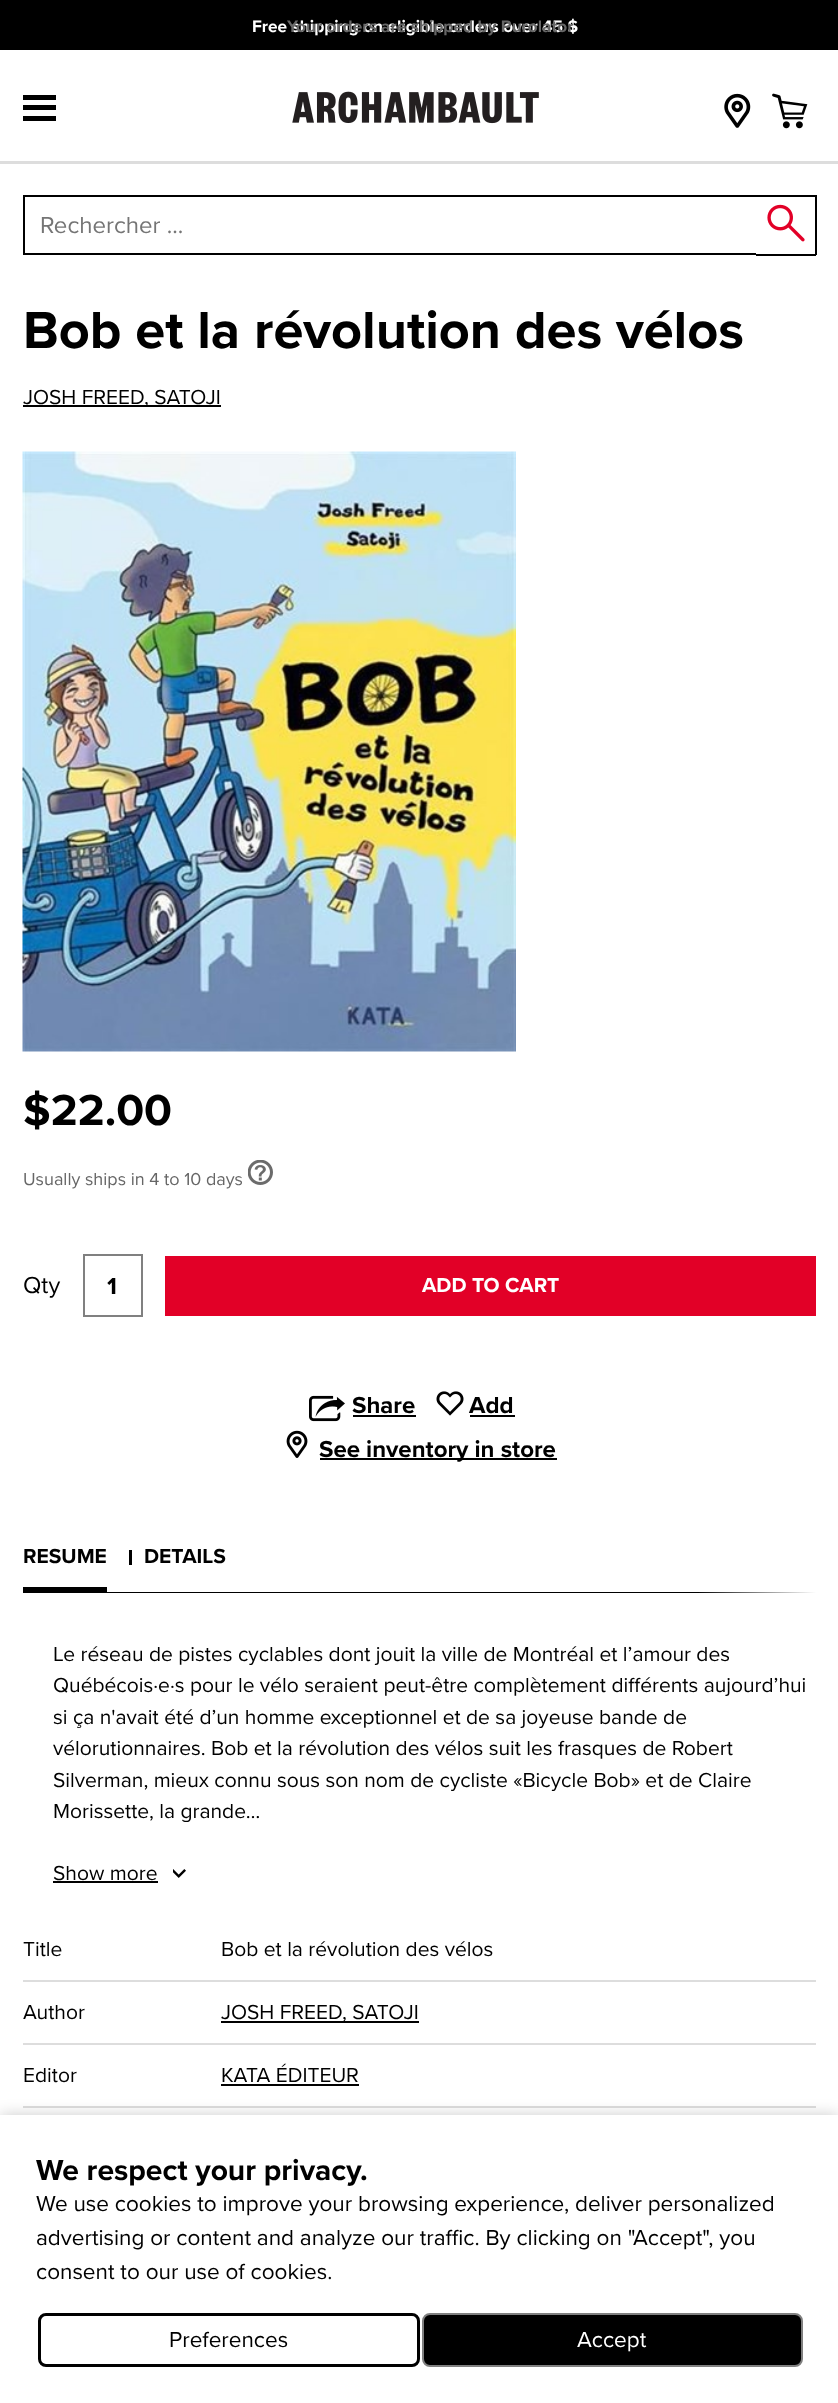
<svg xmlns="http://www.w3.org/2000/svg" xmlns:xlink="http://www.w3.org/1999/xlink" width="838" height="2403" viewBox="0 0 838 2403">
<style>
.cls-1{font:bold 17.25px Proxima Nova;fill:#ffffff}
.cls-2{font:bold 17.25px Proxima Nova;fill:#666666}
.cls-3{font:24px Proxima Nova;fill:#757575}
.cls-4{font:bold 54px Proxima Nova;fill:#000000}
.cls-5{font:21px Proxima Nova;fill:#000000}
.cls-6{font:bold 45px Proxima Nova;fill:#000000}
.cls-7{font:18px Proxima Nova;fill:#666666}
.cls-8{font:24px Proxima Nova;fill:#000000}
.cls-9{font:bold 24px Proxima Nova;fill:#000000}
.cls-10{font:bold 21px Proxima Nova;fill:#ffffff}
.cls-11{font:bold 21px Proxima Nova;fill:#000000}
.cls-12{font:bold 30px Proxima Nova;fill:#000000}
.cls-13{font:22.5px Proxima Nova;fill:#000000}
.cls-14{font:22.5px Proxima Nova;fill:#ffffff}
</style>
<defs>
<linearGradient id="g1" gradientUnits="userSpaceOnUse" x1="696" y1="1561" x2="816" y2="1561"><stop offset="0" stop-color="#ffffff" stop-opacity="0"/><stop offset="1" stop-color="#ffffff"/></linearGradient>
</defs>
<rect width="100%" height="100%" fill="#ffffff"/>
<rect fill="#000000" x="0" y="0" width="838" height="50"/>
<rect fill="#dddddd" x="0" y="161" width="838" height="3"/>
<rect fill="#000000" x="23" y="95" width="33" height="5"/>
<rect fill="#000000" x="23" y="116" width="33" height="5"/>
<rect fill="#000000" x="23" y="105" width="33" height="5"/>
<image xlink:href="image0.png" x="292" y="91" width="247" height="33"/>
<image xlink:href="image1.png" x="724" y="93" width="27" height="35"/>
<image xlink:href="image2.png" x="772" y="93" width="36" height="36"/>
<rect fill="none" stroke="#000000" stroke-width="2" x="24" y="196" width="733" height="58"/>
<rect fill="#ffffff" x="756" y="197" width="2" height="57"/>
<rect fill="#000000" x="756" y="195" width="60" height="2"/>
<rect fill="#000000" x="815" y="195" width="2" height="60"/>
<rect fill="#000000" x="756" y="254" width="60" height="2"/>
<image xlink:href="image3.png" x="767" y="204" width="38" height="38"/>
<rect fill="#000000" x="23" y="405" width="198" height="2"/>
<image xlink:href="image4.png" x="22" y="451" width="494" height="601"/>
<image xlink:href="image5.png" x="248" y="1160" width="25" height="25"/>
<rect fill="none" stroke="#808080" stroke-width="2" x="84" y="1255" width="58" height="61"/>
<rect fill="#e20027" x="165" y="1256" width="651" height="60"/>
<image xlink:href="image6.png" x="309" y="1395" width="36" height="27"/>
<rect fill="#000000" x="353" y="1415" width="63" height="2"/>
<image xlink:href="image7.png" x="436" y="1391" width="28" height="25"/>
<rect fill="#000000" x="470" y="1415" width="45" height="2"/>
<image xlink:href="image8.png" x="286" y="1430" width="22" height="28"/>
<rect fill="#000000" x="320" y="1458" width="237" height="2"/>
<rect fill="#000000" x="23" y="1592" width="793" height="1"/>
<rect fill="#000000" x="23" y="1587" width="84" height="5"/>
<rect fill="#000000" x="129" y="1550" width="3" height="15"/>
<rect fill="url(#g1)" x="699" y="1592" width="117" height="1"/>
<rect fill="#000000" x="53" y="1881" width="105" height="2"/>
<image xlink:href="image9.png" x="173" y="1869" width="13" height="9"/>
<rect fill="#dddddd" x="23" y="1980" width="793" height="2"/>
<rect fill="#dddddd" x="23" y="2043" width="793" height="2"/>
<rect fill="#000000" x="221" y="2021" width="198" height="2"/>
<rect fill="#dddddd" x="23" y="2106" width="793" height="2"/>
<rect fill="#000000" x="221" y="2084" width="138" height="2"/>
<rect fill="#000000" fill-opacity="0.2" filter="blur(7.5px)" x="0" y="2115" width="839" height="288"/>
<rect fill="#ffffff" x="0" y="2115" width="838" height="288"/>
<rect fill="none" stroke="#000000" stroke-width="3" x="39.5" y="2314.5" width="379" height="51" rx="6.5"/>
<rect fill="#000000" stroke="#808080" stroke-width="2" x="423" y="2314" width="379" height="52" rx="7"/>
<text class="cls-1" x="252" y="32">Free shipping on eligible orders over 45 $</text>
<text class="cls-2" x="287" y="32">Your orders are shipped by Purolator</text>
<text class="cls-3" x="40" y="233">Rechercher ...</text>
<text class="cls-4" x="23" y="348">Bob et la révolution des vélos</text>
<text class="cls-5" x="23" y="404">JOSH FREED, SATOJI</text>
<text class="cls-6" x="23" y="1125">$22.00</text>
<text class="cls-7" x="23" y="1185">Usually ships in 4 to 10 days</text>
<text class="cls-8" x="23" y="1293">Qty</text>
<text class="cls-9" x="107" y="1294">1</text>
<text class="cls-10" x="422" y="1292">ADD TO CART</text>
<text class="cls-9" x="352" y="1413">Share</text>
<text class="cls-9" x="469" y="1413">Add</text>
<text class="cls-9" x="319" y="1457">See inventory in store</text>
<text class="cls-11" x="23" y="1563">RESUME</text>
<text class="cls-11" x="144" y="1563">DETAILS</text>
<text class="cls-5"><tspan x="53" y="1661">Le réseau de pistes cyclables dont jouit la ville de Montréal et l’amour des</tspan><tspan x="53" y="1692">Québécois·e·s pour le vélo seraient peut-être complètement différents aujourd’hui</tspan><tspan x="53" y="1724">si ça n'avait été d’un homme exceptionnel et de sa joyeuse bande de</tspan><tspan x="53" y="1755">vélorutionnaires. Bob et la révolution des vélos suit les frasques de Robert</tspan><tspan x="53" y="1787">Silverman, mieux connu sous son nom de cycliste «Bicycle Bob» et de Claire</tspan><tspan x="53" y="1818">Morissette, la grande…</tspan></text>
<text class="cls-5" x="53" y="1880">Show more</text>
<text class="cls-5" x="23" y="1956">Title</text>
<text class="cls-5" x="221" y="1956">Bob et la révolution des vélos</text>
<text class="cls-5" x="23" y="2019">Author</text>
<text class="cls-5" x="221" y="2019">JOSH FREED, SATOJI</text>
<text class="cls-5" x="23" y="2082">Editor</text>
<text class="cls-5" x="221" y="2082">KATA ÉDITEUR</text>
<text class="cls-12" x="36" y="2180">We respect your privacy.</text>
<text class="cls-13"><tspan x="36" y="2211">We use cookies to improve your browsing experience, deliver personalized</tspan><tspan x="36" y="2245">advertising or content and analyze our traffic. By clicking on "Accept", you</tspan><tspan x="36" y="2279">consent to our use of cookies.</tspan></text>
<text class="cls-13" x="169" y="2347">Preferences</text>
<text class="cls-14" x="577" y="2347">Accept</text>
</svg>
